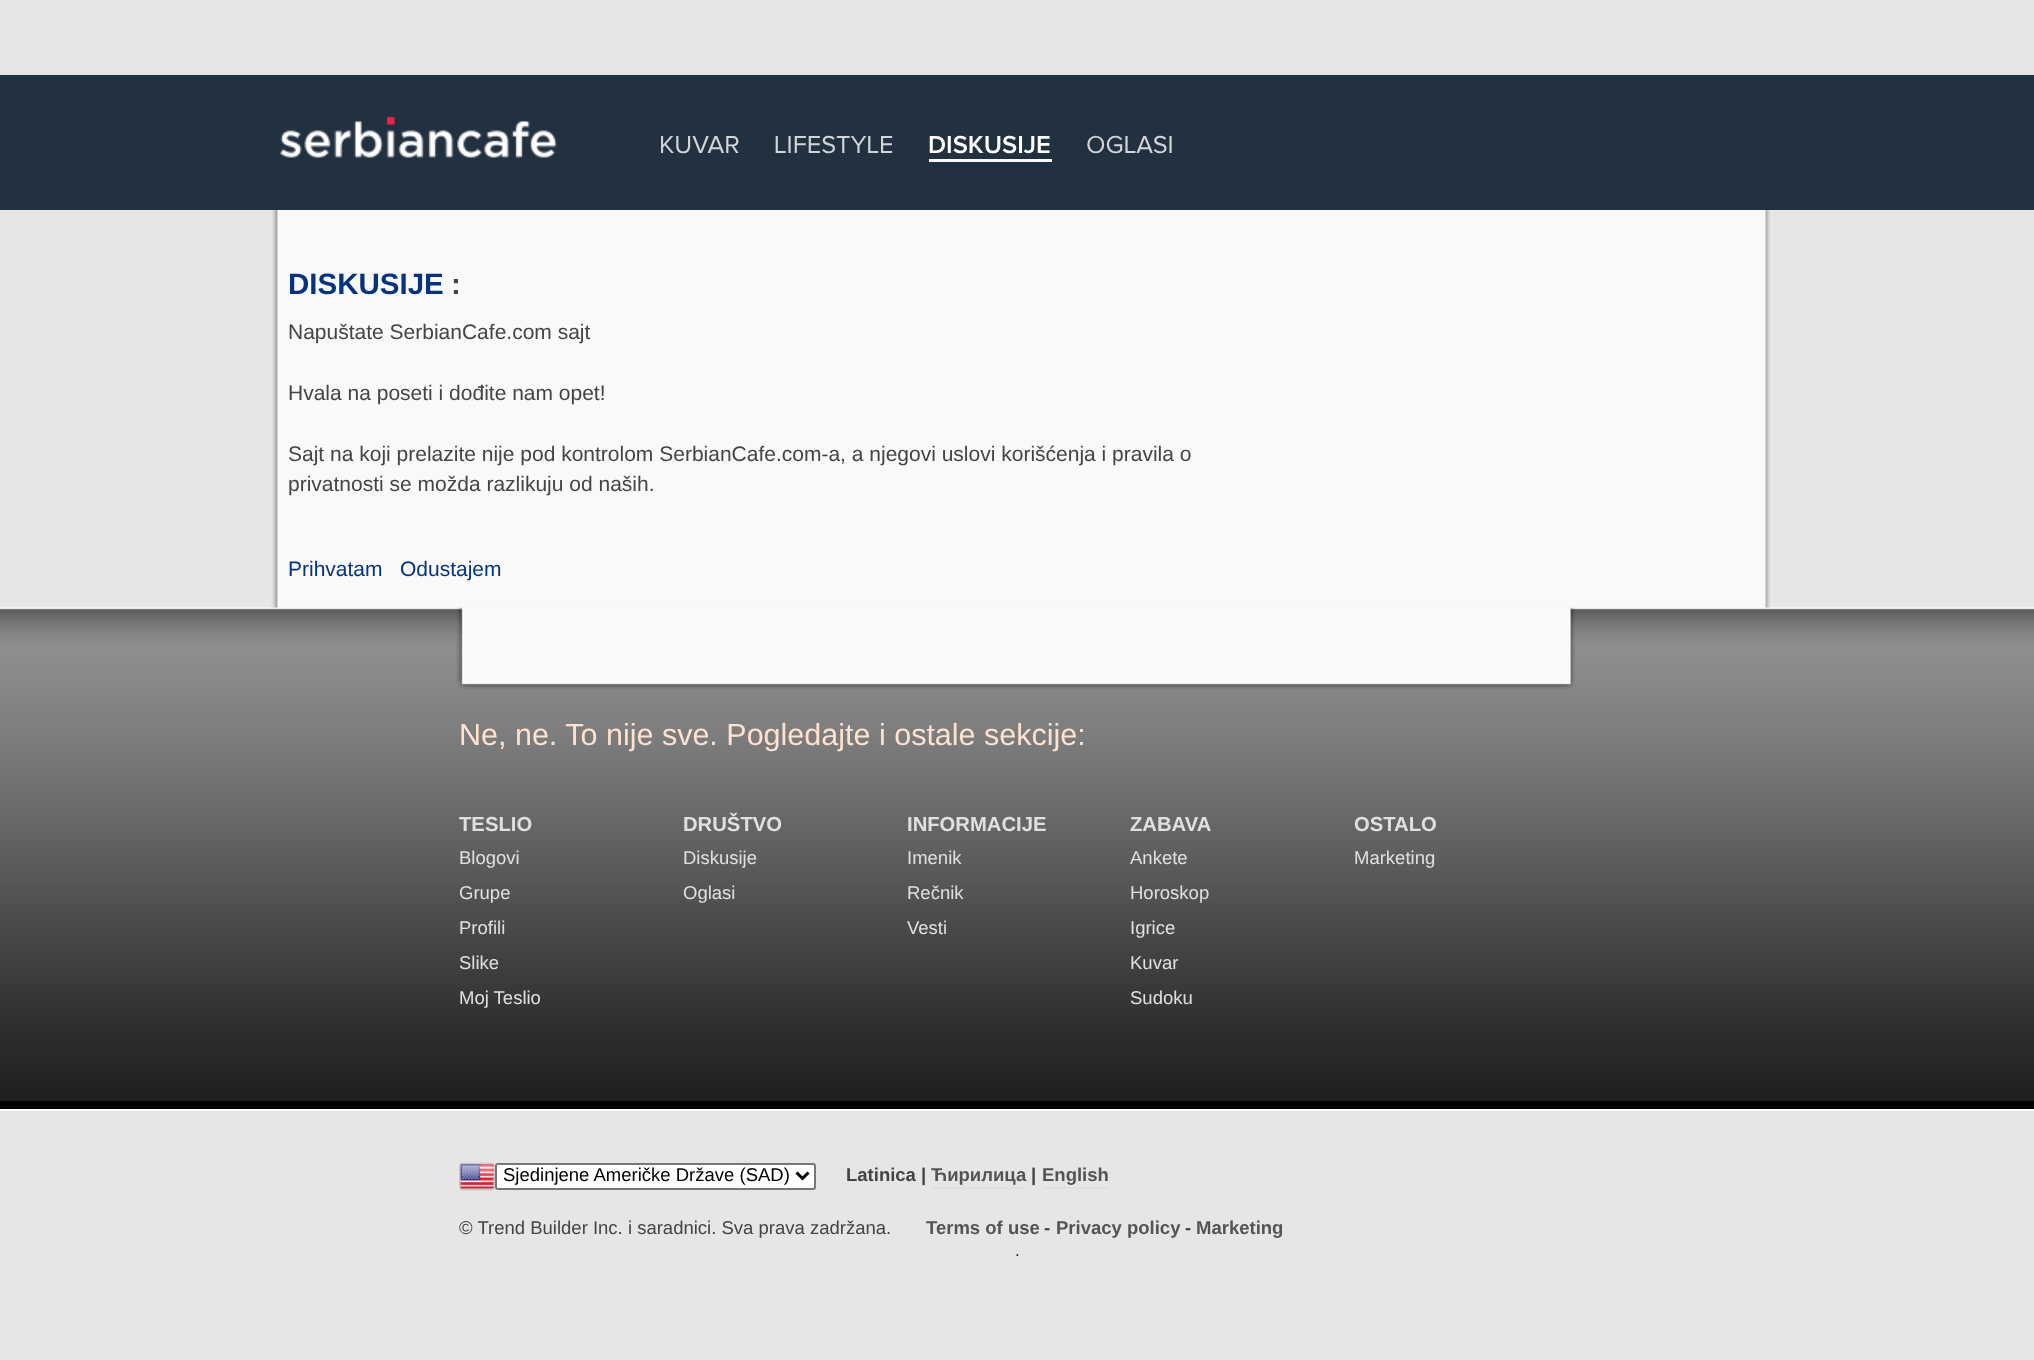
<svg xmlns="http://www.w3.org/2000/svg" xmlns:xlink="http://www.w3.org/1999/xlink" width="2034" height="1360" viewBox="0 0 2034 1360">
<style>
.cls-1{font:25.5px Proxima Nova;fill:#d2d5d8}
.cls-2{font:600 25.5px Proxima Nova;fill:#ffffff}
.cls-3{font:bold 29.5px Liberation Sans;fill:#07337c}
.cls-4{font:bold 29.5px Liberation Sans;fill:#444444}
.cls-5{font:21px Liberation Sans;fill:#444444}
.cls-6{font:21px Liberation Sans;fill:#07337c}
.cls-7{font:30.5px Liberation Sans;fill:#ffe1cf}
.cls-8{font:bold 20.25px Liberation Sans;fill:#e0e0e0}
.cls-9{font:18.5px Liberation Sans;fill:#e0e0e0}
.cls-10{font:18.5px Liberation Sans;fill:#000000}
.cls-11{font:bold 18.5px Liberation Sans;fill:#444444}
.cls-12{font:bold 18.5px Liberation Sans;fill:#545454}
.cls-13{font:18.5px Liberation Sans;fill:#444444}
.cls-14{font:17px Liberation Sans;fill:#232323}
</style>
<rect width="100%" height="100%" fill="#e6e6e6"/>
<rect fill="#213140" x="0" y="75" width="2034" height="135"/>
<image xlink:href="image0.png" x="280" y="116" width="277" height="42"/>
<rect fill="#fafafa" x="929" y="159" width="123" height="3"/>
<image xlink:href="image2.png" x="0" y="607" width="2034" height="502"/>
<image xlink:href="image3.png" x="456" y="607" width="1119" height="82"/>
<image xlink:href="image1.png" x="270" y="210" width="1500" height="398"/>
<rect fill="#ffffff" x="0" y="1109" width="2034" height="2"/>
<image xlink:href="image4.png" x="459" y="1162" width="36" height="29"/>
<rect fill="#ffffff" stroke="#767676" stroke-width="2" x="496" y="1164" width="319" height="25" rx="2"/>
<path fill="none" stroke="#000000" stroke-width="3" d="M796.5 1172.5L802.5 1178.5L808.5 1172.5"/>
<rect fill="#e0e0e0" x="932" y="1187" width="94" height="2"/>
<rect fill="#e0e0e0" x="1043" y="1187" width="66" height="2"/>
<text class="cls-1" x="659" y="153">KUVAR</text>
<text class="cls-1" x="774" y="153">LIFESTYLE</text>
<text class="cls-2" x="928" y="153">DISKUSIJE</text>
<text class="cls-1" x="1086" y="153">OGLASI</text>
<text class="cls-3" x="288" y="294">DISKUSIJE</text>
<text class="cls-4" x="451" y="294">:</text>
<text class="cls-5" x="288" y="339">Napuštate SerbianCafe.com sajt</text>
<text class="cls-5" x="288" y="400">Hvala na poseti i dođite nam opet!</text>
<text class="cls-5"><tspan x="288" y="461">Sajt na koji prelazite nije pod kontrolom SerbianCafe.com-a, a njegovi uslovi korišćenja i pravila o</tspan><tspan x="288" y="491">privatnosti se možda razlikuju od naših.</tspan></text>
<text class="cls-6" x="288" y="576">Prihvatam</text>
<text class="cls-6" x="400" y="576">Odustajem</text>
<text class="cls-7" x="459" y="745">Ne, ne. To nije sve. Pogledajte i ostale sekcije:</text>
<text class="cls-8" x="459" y="831">TESLIO</text>
<text class="cls-9"><tspan x="459" y="864">Blogovi</tspan><tspan x="459" y="899">Grupe</tspan><tspan x="459" y="934">Profili</tspan><tspan x="459" y="969">Slike</tspan><tspan x="459" y="1004">Moj Teslio</tspan></text>
<text class="cls-8" x="683" y="831">DRUŠTVO</text>
<text class="cls-9"><tspan x="683" y="864">Diskusije</tspan><tspan x="683" y="899">Oglasi</tspan></text>
<text class="cls-8" x="907" y="831">INFORMACIJE</text>
<text class="cls-9"><tspan x="907" y="864">Imenik</tspan><tspan x="907" y="899">Rečnik</tspan><tspan x="907" y="934">Vesti</tspan></text>
<text class="cls-8" x="1130" y="831">ZABAVA</text>
<text class="cls-9"><tspan x="1130" y="864">Ankete</tspan><tspan x="1130" y="899">Horoskop</tspan><tspan x="1130" y="934">Igrice</tspan><tspan x="1130" y="969">Kuvar</tspan><tspan x="1130" y="1004">Sudoku</tspan></text>
<text class="cls-8" x="1354" y="831">OSTALO</text>
<text class="cls-9" x="1354" y="864">Marketing</text>
<text class="cls-10" x="503" y="1181">Sjedinjene Američke Države (SAD)</text>
<text class="cls-11" x="846" y="1181">Latinica |</text>
<text class="cls-12" x="931" y="1181">Ћирилица</text>
<text class="cls-11" x="1031" y="1181">|</text>
<text class="cls-12" x="1042" y="1181">English</text>
<text class="cls-13" x="459" y="1234">© Trend Builder Inc. i saradnici. Sva prava zadržana.</text>
<text class="cls-12" x="926" y="1234">Terms of use</text>
<text class="cls-11" x="1044" y="1234">-</text>
<text class="cls-12" x="1056" y="1234">Privacy policy</text>
<text class="cls-11" x="1185" y="1234">-</text>
<text class="cls-12" x="1196" y="1234">Marketing</text>
<text class="cls-14" x="1015" y="1256">.</text>
</svg>
